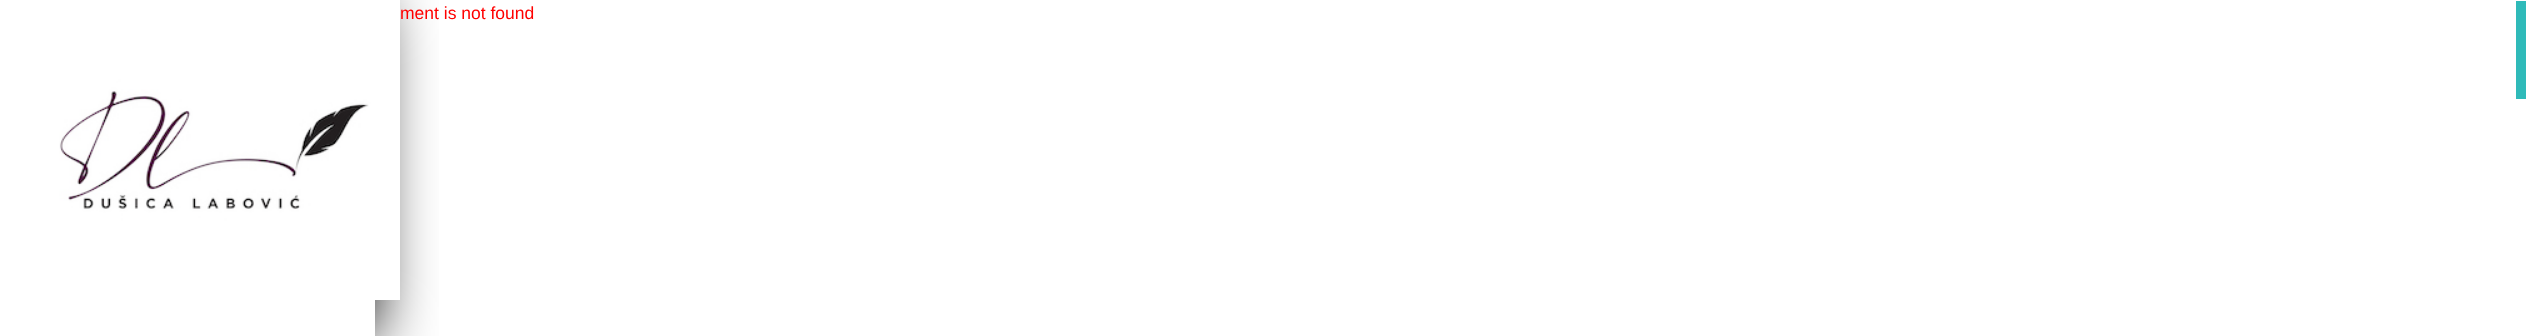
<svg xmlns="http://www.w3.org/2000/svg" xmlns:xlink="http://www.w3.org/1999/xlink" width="2527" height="336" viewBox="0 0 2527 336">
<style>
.cls-1{font:17.5px Liberation Sans;fill:#ff0000}
</style>
<defs>
<clipPath id="clip1"><rect x="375" y="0" width="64" height="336"/></clipPath>
</defs>
<rect width="100%" height="100%" fill="#ffffff"/>
<g clip-path="url(#clip1)">
<rect fill="#000000" filter="blur(31px)" x="0" y="0" width="375" height="336"/>
</g>
<image xlink:href="image0.png" x="59" y="0" width="341" height="300"/>
<rect fill="#2fbab9" x="2516" y="1" width="10" height="98"/>
<text class="cls-1" x="400" y="19">ment is not found</text>
</svg>
